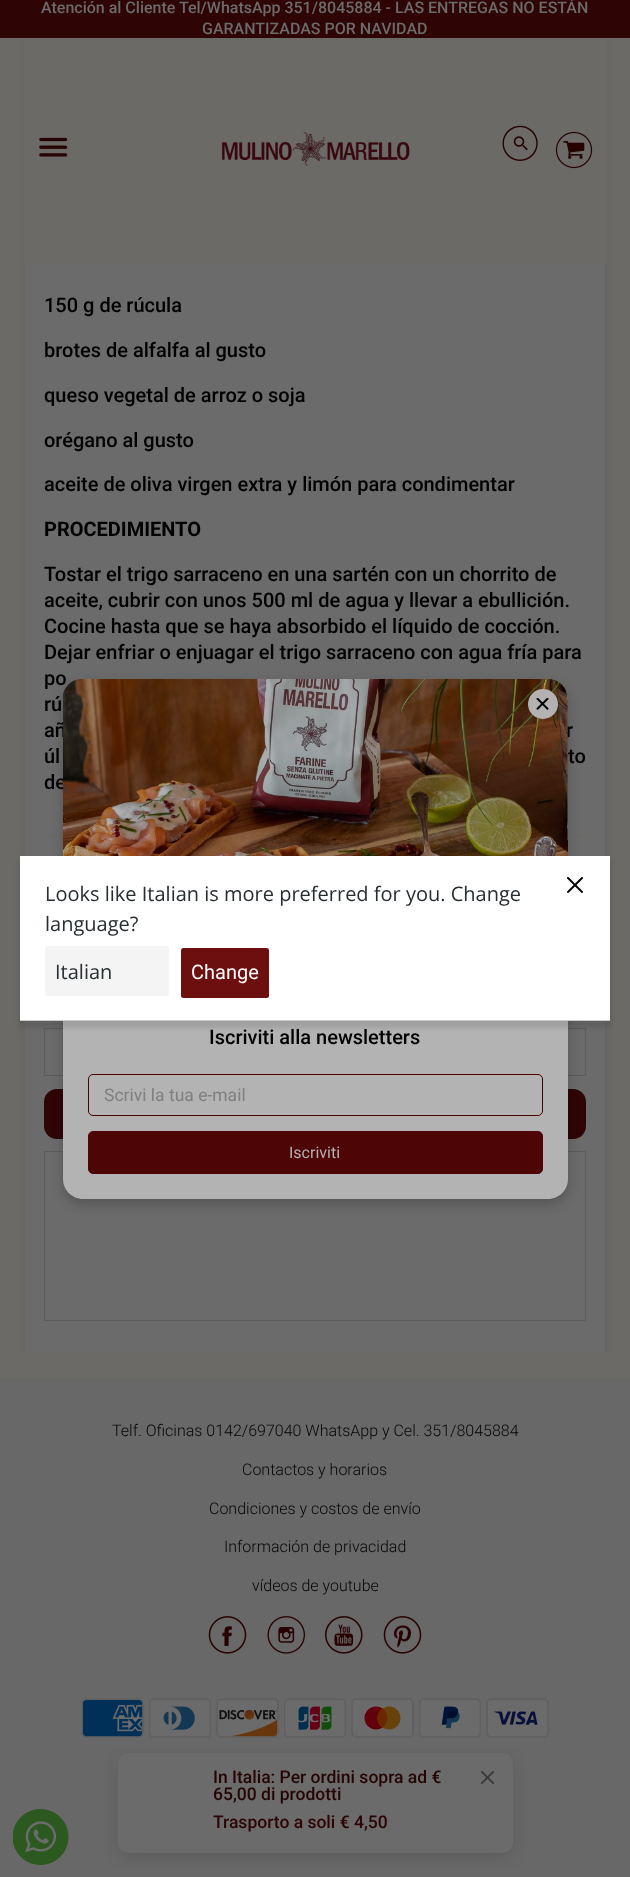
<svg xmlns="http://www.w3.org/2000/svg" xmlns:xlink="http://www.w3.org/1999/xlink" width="630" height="1877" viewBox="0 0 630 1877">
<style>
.cls-1{font:500 16px Roboto;fill:#6b6b6b}
.cls-2{font:500 20px Roboto;fill:#000000}
.cls-3{font:bold 20px Roboto;fill:#000000}
.cls-4{font:20px Roboto;fill:#ffffff}
.cls-5{font:20px Open Sans;fill:#272e31}
.cls-6{font:17.5px Roboto;fill:#7f7f7f}
.cls-7{font:16px Roboto;fill:#b3b3b3}
.cls-8{font:300 16px Roboto;fill:#060606}
.cls-9{font:500 17.5px Roboto;fill:#250404}
.cls-10{font:500 17.5px Roboto;fill:#2d0404}
</style>
<defs>
<clipPath id="clip1"><rect x="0" y="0" width="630" height="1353"/></clipPath>
</defs>
<rect width="100%" height="100%" fill="#6b6a67"/>
<g clip-path="url(#clip1)">
<rect fill="#454545" fill-opacity="0.32" filter="blur(4.5px)" x="28" y="-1" width="575" height="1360"/>
</g>
<rect fill="#2e0504" x="0" y="0" width="630" height="38"/>
<rect fill="#6b6a67" x="24" y="38" width="583" height="225"/>
<image xlink:href="image0.png" x="39" y="137" width="29" height="20"/>
<image xlink:href="image1.png" x="221" y="132" width="189" height="34"/>
<image xlink:href="image2.png" x="502" y="125" width="36" height="36"/>
<image xlink:href="image3.png" x="555" y="131" width="38" height="38"/>
<rect fill="#6b6b6b" x="25" y="263" width="580" height="1090"/>
<rect fill="#6b6a67" x="44" y="834" width="542" height="3"/>
<rect fill="none" stroke="#5c5c5c" x="44.5" y="1028.5" width="541" height="47"/>
<rect fill="#2e0504" x="44" y="1089" width="542" height="50" rx="13"/>
<rect fill="none" stroke="#5c5c5c" x="44.5" y="1151.5" width="541" height="169"/>
<rect fill="#000000" fill-opacity="0.2" filter="blur(6px)" x="63" y="684" width="505" height="520" rx="20"/>
<path fill="#b3b3b3" d="M63 939H568V1179C568 1190 559 1199 548 1199H83C72 1199 63 1190 63 1179Z"/>
<rect fill="none" stroke="#4c0101" x="88.5" y="1074.5" width="454" height="41" rx="4.5"/>
<rect fill="#4e0505" stroke="#4e0505" x="88.5" y="1131.5" width="454" height="42" rx="4.5"/>
<rect fill="#686868" x="0" y="1378" width="630" height="499"/>
<image xlink:href="image7.png" x="208" y="1616" width="39" height="38"/>
<image xlink:href="image8.png" x="267" y="1616" width="38" height="38"/>
<image xlink:href="image9.png" x="325" y="1616" width="38" height="38"/>
<image xlink:href="image10.png" x="383" y="1616" width="39" height="38"/>
<image xlink:href="image11.png" x="81" y="1698" width="63" height="40"/>
<image xlink:href="image12.png" x="149" y="1698" width="62" height="40"/>
<image xlink:href="image13.png" x="216" y="1698" width="63" height="40"/>
<image xlink:href="image14.png" x="284" y="1698" width="62" height="40"/>
<image xlink:href="image15.png" x="351" y="1698" width="63" height="40"/>
<image xlink:href="image16.png" x="419" y="1698" width="62" height="40"/>
<image xlink:href="image17.png" x="486" y="1698" width="63" height="40"/>
<image xlink:href="image18.png" x="13" y="1809" width="56" height="56"/>
<rect fill="#000000" fill-opacity="0.1" filter="blur(7.5px)" x="118" y="1758" width="395" height="100" rx="10"/>
<rect fill="#6b6b6b" x="118" y="1753" width="395" height="100" rx="10"/>
<image xlink:href="image19.png" x="481" y="1771" width="13" height="13"/>
<text class="cls-1" x="41" y="13">Atención al Cliente Tel/WhatsApp 351/8045884 - LAS ENTREGAS NO ESTÁN</text>
<text class="cls-1" x="202" y="34">GARANTIZADAS POR NAVIDAD</text>
<text class="cls-2" x="44" y="312">150 g de rúcula</text>
<text class="cls-2" x="44" y="357">brotes de alfalfa al gusto</text>
<text class="cls-2" x="44" y="402">queso vegetal de arroz o soja</text>
<text class="cls-2" x="44" y="447">orégano al gusto</text>
<text class="cls-2" x="44" y="491">aceite de oliva virgen extra y limón para condimentar</text>
<text class="cls-3" x="44" y="536">PROCEDIMIENTO</text>
<text class="cls-2"><tspan x="44" y="581">Tostar el trigo sarraceno en una sartén con un chorrito de</tspan><tspan x="44" y="607">aceite, cubrir con unos 500 ml de agua y llevar a ebullición.</tspan><tspan x="44" y="633">Cocine hasta que se haya absorbido el líquido de cocción.</tspan><tspan x="44" y="659">Dejar enfriar o enjuagar el trigo sarraceno con agua fría para</tspan><tspan x="44" y="685">po</tspan><tspan x="44" y="711">rú</tspan><tspan x="44" y="737">añ</tspan></text>
<text class="cls-2" x="566" y="737">r</text>
<text class="cls-2" x="44" y="763">úl</text>
<text class="cls-2" x="568" y="763">to</text>
<text class="cls-2" x="44" y="789">de</text>
<image xlink:href="image6.png" x="63" y="679" width="505" height="177"/>
<rect fill="#000000" fill-opacity="0.3" filter="blur(0.5px)" x="20" y="856" width="590" height="165"/>
<rect fill="#000000" fill-opacity="0.1" filter="blur(2.5px)" x="19" y="860" width="592" height="168"/>
<rect fill="#ffffff" x="20" y="856" width="590" height="164"/>
<image xlink:href="image4.png" x="567" y="877" width="16" height="16"/>
<rect fill="#6d0f0f" x="181" y="948" width="88" height="50" rx="2.5"/>
<text class="cls-4" x="191" y="979">Change</text>
<rect fill="#f4f4f4" x="45" y="946" width="124" height="50" rx="2.5"/>
<text class="cls-5" x="55" y="979">Italian</text>
<text class="cls-5" x="45" y="931">language?</text>
<text class="cls-5" x="45" y="901">Looks like Italian is more preferred for you. Change</text>
<rect fill="#cccccc" x="20" y="1020" width="590" height="1"/>
<circle fill="#b3b1b1" cx="543" cy="704" r="15"/>
<image xlink:href="image5.png" x="536" y="698" width="13" height="12"/>
<text class="cls-2" x="209" y="1044">Iscriviti alla newsletters</text>
<text class="cls-6" x="104" y="1101">Scrivi la tua e-mail</text>
<text class="cls-7" x="289" y="1158">Iscriviti</text>
<text class="cls-8" x="112" y="1436">Telf. Oficinas 0142/697040 WhatsApp y Cel. 351/8045884</text>
<text class="cls-8" x="242" y="1475">Contactos y horarios</text>
<text class="cls-8" x="209" y="1514">Condiciones y costos de envío</text>
<text class="cls-8" x="224" y="1552">Información de privacidad</text>
<text class="cls-8" x="252" y="1591">vídeos de youtube</text>
<text class="cls-9"><tspan x="213" y="1783">In Italia: Per ordini sopra ad €</tspan><tspan x="213" y="1800">65,00 di prodotti</tspan></text>
<text class="cls-10" x="213" y="1828">Trasporto a soli € 4,50</text>
</svg>
